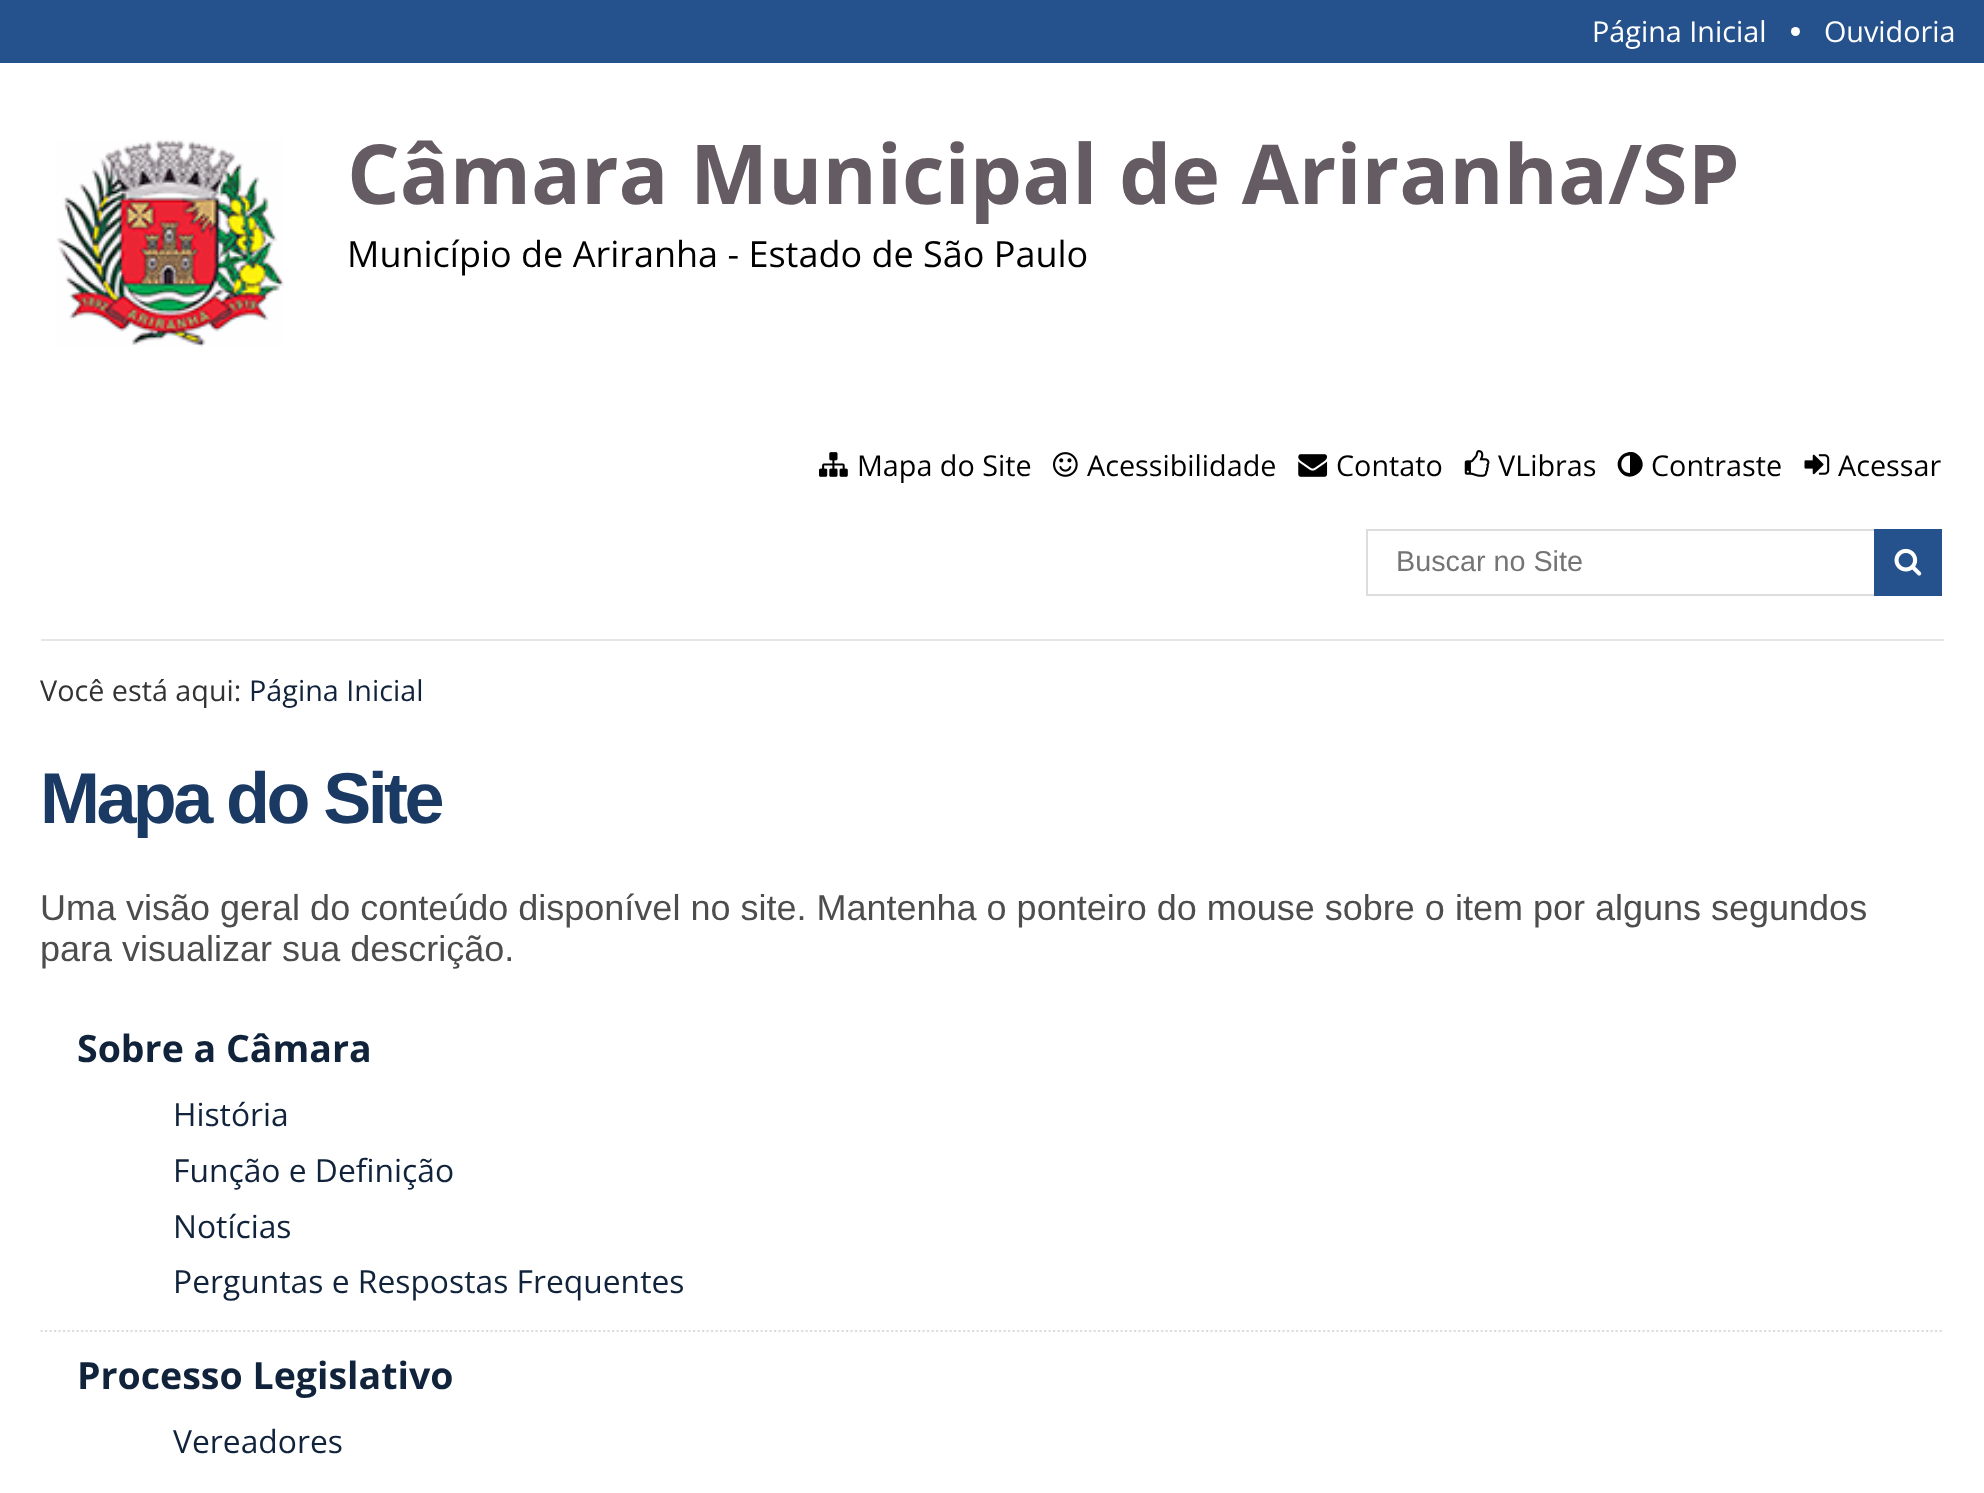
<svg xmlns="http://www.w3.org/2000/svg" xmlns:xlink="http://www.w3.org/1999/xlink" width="1984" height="1493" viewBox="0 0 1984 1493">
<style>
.cls-1{font:28.75px Open Sans;fill:#ffffff}
.cls-2{font:bold 82.75px Open Sans;fill:#655b63}
.cls-3{font:36px Open Sans;fill:#000000}
.cls-4{font:28.75px Open Sans;fill:#000000}
.cls-5{font:28.75px Liberation Sans;fill:#757575}
.cls-6{font:28.75px Open Sans;fill:#333333}
.cls-7{font:28.75px Open Sans;fill:#10233b}
.cls-8{font:bold 72px Liberation Sans;letter-spacing:-3.6px;fill:#1a3a64}
.cls-9{font:36px Liberation Sans;fill:#4d4d4d}
.cls-10{font:bold 37.5px Open Sans;fill:#10233b}
.cls-11{font:31.8px Open Sans;fill:#10233b}
</style>
<rect width="100%" height="100%" fill="#ffffff"/>
<rect fill="#25528c" x="0" y="0" width="1984" height="63"/>
<circle fill="#ffffff" cx="1795.5" cy="31.5" r="4.5"/>
<image xlink:href="image0.png" x="56" y="139" width="228" height="208"/>
<image xlink:href="image1.png" x="819" y="452" width="29" height="25"/>
<image xlink:href="image2.png" x="1053" y="452" width="25" height="25"/>
<image xlink:href="image3.png" x="1298" y="454" width="30" height="23"/>
<image xlink:href="image4.png" x="1464" y="450" width="26" height="27"/>
<path fill="#000000" d="M1630 473V455.5C1618.5 455.5 1618.5 473 1630 473ZM1641 458.5C1649 472 1627.5 484.5 1619.5 470.5C1611.5 456.5 1632.5 444 1641 458.5Z"/>
<image xlink:href="image5.png" x="1804" y="454" width="26" height="21"/>
<rect fill="none" stroke="#dddddd" stroke-width="2" x="1367" y="530" width="574" height="65"/>
<rect fill="#25528c" x="1874" y="529" width="68" height="67"/>
<image xlink:href="image6.png" x="1894" y="548" width="28" height="28"/>
<rect fill="#e6e6e6" x="41" y="639" width="1903" height="2"/>
<path fill="none" stroke="#dddddd" stroke-width="2.2" stroke-dasharray="2.25 2.25" d="M40.5 1331H1944"/>
<text class="cls-1" x="1592" y="42">Página Inicial</text>
<text class="cls-1" x="1824" y="42">Ouvidoria</text>
<text class="cls-2" x="347" y="204">Câmara Municipal de Ariranha/SP</text>
<text class="cls-3" x="347" y="267">Município de Ariranha - Estado de São Paulo</text>
<text class="cls-4" x="857" y="476">Mapa do Site</text>
<text class="cls-4" x="1087" y="476">Acessibilidade</text>
<text class="cls-4" x="1336" y="476">Contato</text>
<text class="cls-4" x="1498" y="476">VLibras</text>
<text class="cls-4" x="1651" y="476">Contraste</text>
<text class="cls-4" x="1838" y="476">Acessar</text>
<text class="cls-5" x="1396" y="571">Buscar no Site</text>
<text class="cls-6" x="40" y="701">Você está aqui:</text>
<text class="cls-7" x="249" y="701">Página Inicial</text>
<text class="cls-8" x="40" y="823">Mapa do Site</text>
<text class="cls-9"><tspan x="40" y="920">Uma visão geral do conteúdo disponível no site. Mantenha o ponteiro do mouse sobre o item por alguns segundos</tspan><tspan x="40" y="961">para visualizar sua descrição.</tspan></text>
<text class="cls-10" x="77" y="1062">Sobre a Câmara</text>
<text class="cls-11"><tspan x="173" y="1126">História</tspan><tspan x="173" y="1182">Função e Definição</tspan><tspan x="173" y="1238">Notícias</tspan><tspan x="173" y="1293">Perguntas e Respostas Frequentes</tspan></text>
<text class="cls-10" x="77" y="1389">Processo Legislativo</text>
<text class="cls-11" x="173" y="1453">Vereadores</text>
</svg>
